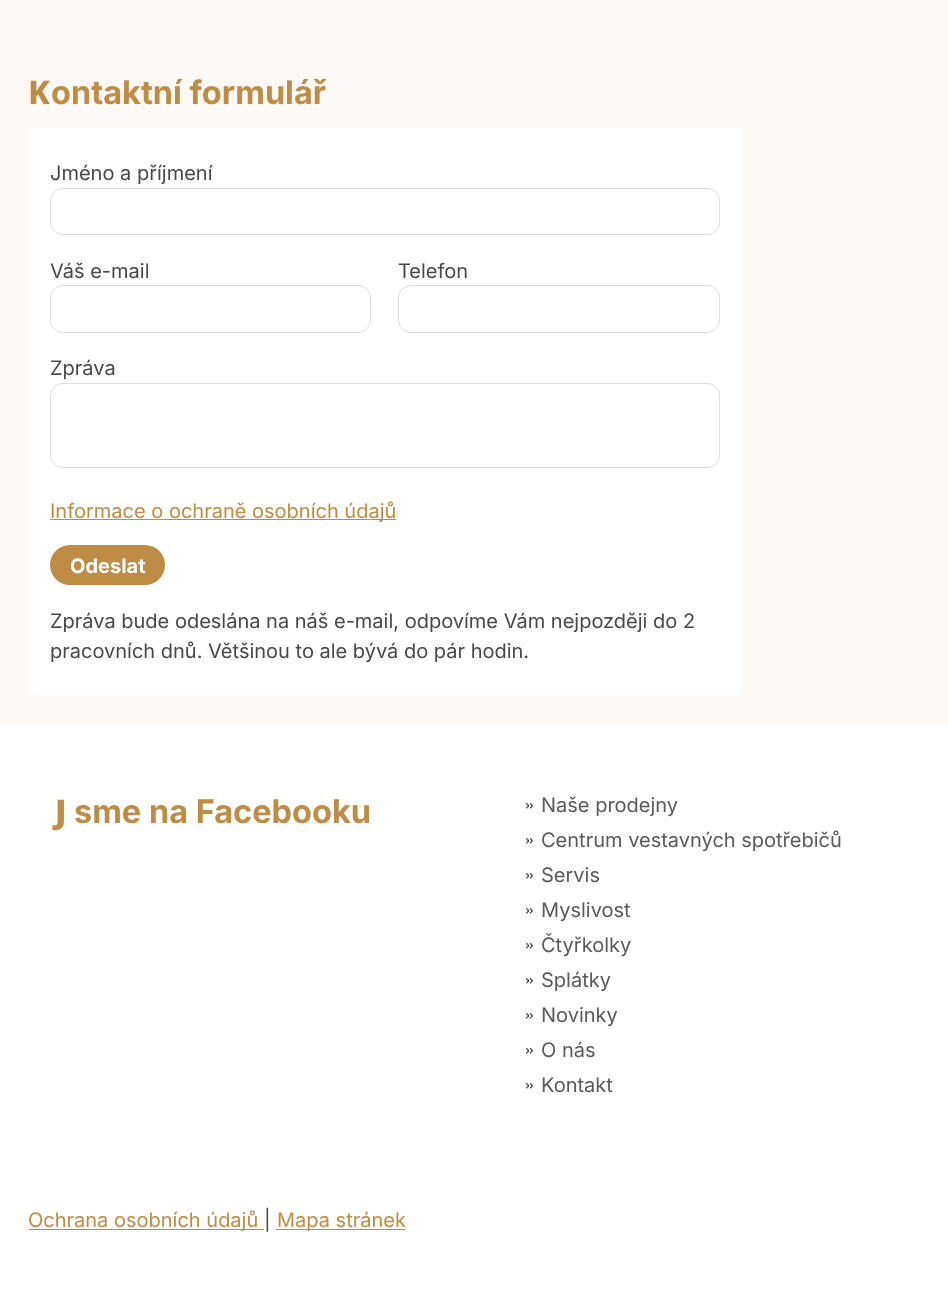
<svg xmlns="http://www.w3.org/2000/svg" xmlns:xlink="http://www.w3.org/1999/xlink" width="948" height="1312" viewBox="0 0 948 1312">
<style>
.cls-1{font:800 32.5px Noto Sans;fill:#be8c45}
.cls-2{font:bold 32.5px Inter;fill:#be8c45}
.cls-3{font:20px Inter;fill:#484848}
.cls-4{font:20px Inter;fill:#be8c45}
.cls-5{font:bold 20px Inter;fill:#ffffff}
.cls-6{font:900 32.5px Noto Sans;fill:#be8c45}
.cls-7{font:20px Inter;fill:#5a5a5a}
</style>
<rect width="100%" height="100%" fill="#ffffff"/>
<rect fill="#fcf9f6" x="0" y="0" width="948" height="725"/>
<rect fill="#ffffff" x="29" y="128" width="712" height="567"/>
<rect fill="none" stroke="#dddddd" x="50.5" y="188.5" width="669" height="46" rx="12.5"/>
<rect fill="none" stroke="#dddddd" x="50.5" y="285.5" width="320" height="47" rx="12.5"/>
<rect fill="none" stroke="#dddddd" x="398.5" y="285.5" width="321" height="47" rx="12.5"/>
<rect fill="none" stroke="#dddddd" x="50.5" y="383.5" width="669" height="84" rx="12.5"/>
<rect fill="#be8c45" x="50" y="519" width="346" height="1"/>
<rect fill="#be8c45" x="50" y="545" width="115" height="40" rx="20"/>
<image xlink:href="image0.png" x="526" y="803" width="7" height="6"/>
<image xlink:href="image0.png" x="526" y="838" width="7" height="6"/>
<image xlink:href="image0.png" x="526" y="873" width="7" height="6"/>
<image xlink:href="image0.png" x="526" y="908" width="7" height="6"/>
<image xlink:href="image0.png" x="526" y="943" width="7" height="6"/>
<image xlink:href="image0.png" x="526" y="978" width="7" height="6"/>
<image xlink:href="image0.png" x="526" y="1013" width="7" height="6"/>
<image xlink:href="image0.png" x="526" y="1048" width="7" height="6"/>
<image xlink:href="image0.png" x="526" y="1083" width="7" height="6"/>
<rect fill="#be8c45" x="29" y="1229" width="235" height="1"/>
<rect fill="#be8c45" x="276" y="1229" width="129" height="1"/>
<text class="cls-1" x="28" y="104">K</text>
<text class="cls-2" x="51" y="104">ontaktní formulář</text>
<text class="cls-3" x="50" y="180">Jméno a příjmení</text>
<text class="cls-3" x="50" y="278">Váš e-mail</text>
<text class="cls-3" x="398" y="278">Telefon</text>
<text class="cls-3" x="50" y="375">Zpráva</text>
<text class="cls-4" x="50" y="518">Informace o ochraně osobních údajů</text>
<text class="cls-5" x="70" y="573">Odeslat</text>
<text class="cls-3"><tspan x="50" y="628">Zpráva bude odeslána na náš e-mail, odpovíme Vám nejpozději do 2</tspan><tspan x="50" y="658">pracovních dnů. Většinou to ale bývá do pár hodin.</tspan></text>
<text class="cls-6" x="55" y="823">J</text>
<text class="cls-2" x="74" y="823">sme na Facebooku</text>
<text class="cls-7"><tspan x="541" y="812">Naše prodejny</tspan><tspan x="541" y="847">Centrum vestavných spotřebičů</tspan><tspan x="541" y="882">Servis</tspan><tspan x="541" y="917">Myslivost</tspan><tspan x="541" y="952">Čtyřkolky</tspan><tspan x="541" y="987">Splátky</tspan><tspan x="541" y="1022">Novinky</tspan><tspan x="541" y="1057">O nás</tspan><tspan x="541" y="1092">Kontakt</tspan></text>
<text class="cls-4" x="28" y="1227">Ochrana osobních údajů</text>
<text class="cls-3" x="264" y="1227">|</text>
<text class="cls-4" x="277" y="1227">Mapa stránek</text>
</svg>
